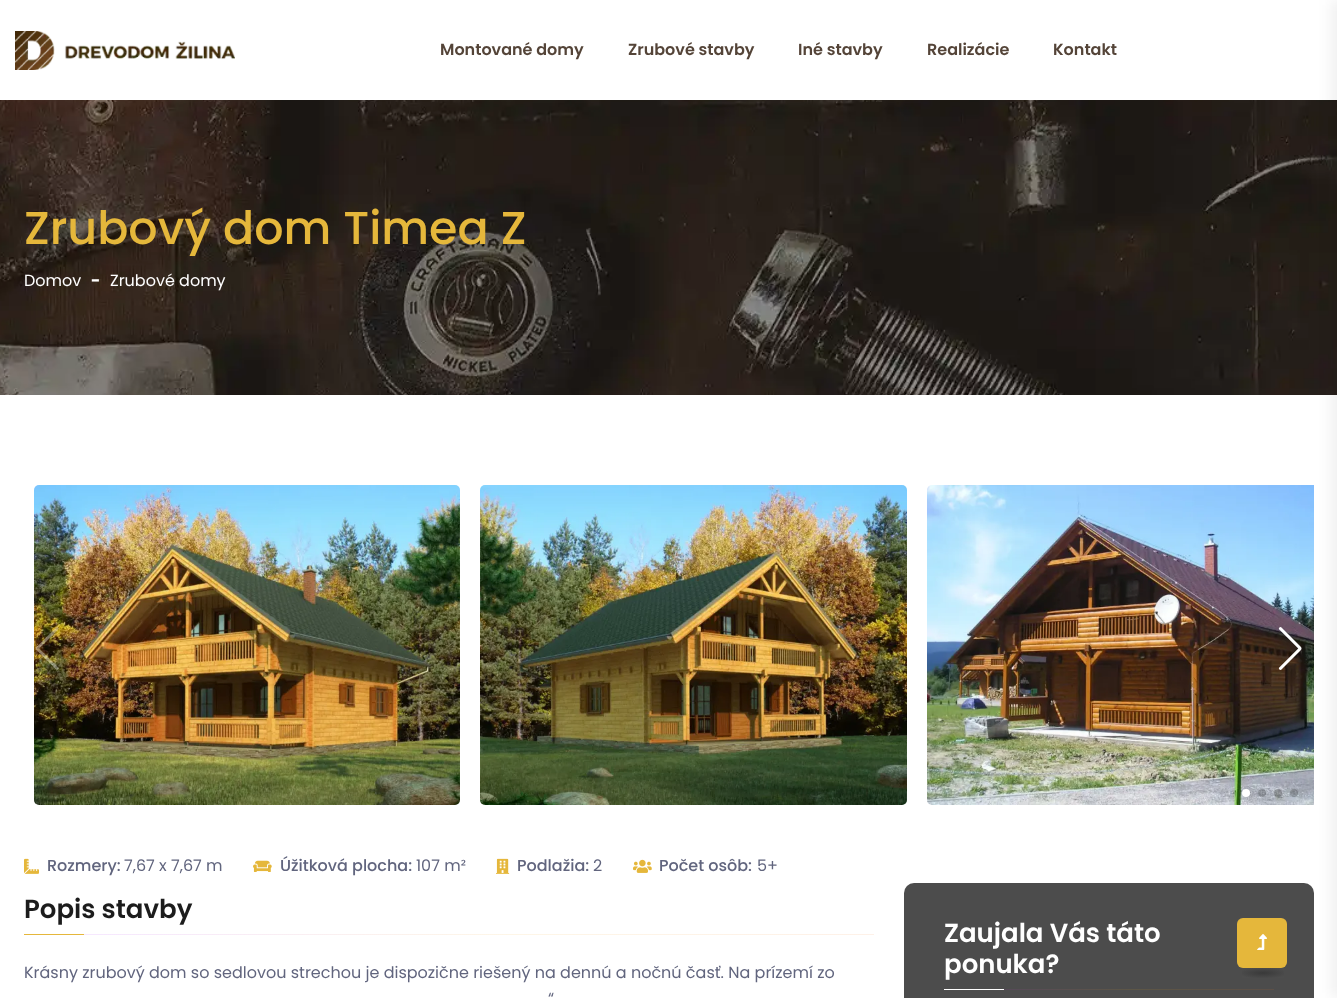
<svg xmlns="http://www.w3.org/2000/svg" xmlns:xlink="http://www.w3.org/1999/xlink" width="1337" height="998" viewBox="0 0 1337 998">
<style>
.cls-1{font:600 16px Poppins;fill:#544438}
.cls-2{font:500 46px Poppins;fill:#e5b73b}
.cls-3{font:16px Poppins;fill:#ffffff}
.cls-4{font:bold 16px Poppins;fill:#ffffff}
.cls-5{font:500 16px Poppins;fill:#61657e}
.cls-6{font:16px Poppins;fill:#61657e}
.cls-7{font:600 26px Poppins;fill:#1c1c1c}
.cls-8{font:600 26px Poppins;fill:#ffffff}
</style>
<defs>
<linearGradient id="g1" gradientUnits="userSpaceOnUse" x1="54" y1="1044" x2="844" y2="825"><stop offset="0.09" stop-color="#f6e8fe"/><stop offset="0.57" stop-color="#fef6e7"/><stop offset="1" stop-color="#fef1e8"/></linearGradient>
<linearGradient id="g2" gradientUnits="userSpaceOnUse" x1="956" y1="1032" x2="1262" y2="947"><stop offset="0.09" stop-color="#55475d"/><stop offset="0.57" stop-color="#5d5646"/><stop offset="1" stop-color="#5d5047"/></linearGradient>
<radialGradient id="g3" gradientUnits="userSpaceOnUse" cx="0" cy="0" r="1" gradientTransform="matrix(32 0 0 7.1 1263 973)"><stop offset="0" stop-color="#393939"/><stop offset="0.8" stop-color="#4d4d4d"/></radialGradient>
</defs>
<rect width="100%" height="100%" fill="#ffffff"/>
<image xlink:href="image0.png" x="15" y="31" width="220" height="39"/>
<image xlink:href="image1.png" x="0" y="100" width="1337" height="295"/>
<image xlink:href="image4.png" x="927" y="485" width="387" height="320"/>
<rect fill="#000000" fill-opacity="0.7" x="904" y="883" width="410" height="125" rx="10"/>
<rect fill="#000000" fill-opacity="0.06" filter="blur(7px)" x="1331" y="0" width="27" height="998"/>
<image xlink:href="image2.png" x="34" y="485" width="426" height="320"/>
<image xlink:href="image3.png" x="480" y="485" width="427" height="320"/>
<image xlink:href="image5.png" x="36" y="627" width="23" height="43"/>
<image xlink:href="image6.png" x="1278" y="627" width="24" height="43"/>
<circle fill="#ffffff" cx="1246" cy="793" r="4"/>
<circle fill="#000000" fill-opacity="0.2" cx="1262" cy="793" r="4"/>
<circle fill="#000000" fill-opacity="0.2" cx="1278" cy="793" r="4"/>
<circle fill="#000000" fill-opacity="0.2" cx="1294" cy="793" r="4"/>
<image xlink:href="image7.png" x="24" y="858" width="15" height="16"/>
<image xlink:href="image8.png" x="253" y="860" width="19" height="12"/>
<image xlink:href="image9.png" x="496" y="858" width="14" height="16"/>
<image xlink:href="image10.png" x="633" y="859" width="19" height="14"/>
<rect fill="#e5b73b" x="24" y="934" width="60" height="1"/>
<rect fill="url(#g1)" x="84" y="934" width="790" height="1"/>
<rect fill="#ffffff" x="944" y="989" width="60" height="1"/>
<rect fill="url(#g2)" x="1004" y="989" width="270" height="1"/>
<rect fill="#e5b73b" x="1237" y="918" width="50" height="50" rx="6"/>
<image xlink:href="image11.png" x="1257" y="934" width="10" height="16"/>
<rect fill="url(#g3)" x="1242" y="968" width="42" height="10"/>
<text class="cls-1" x="440" y="55">Montované domy</text>
<text class="cls-1" x="628" y="55">Zrubové stavby</text>
<text class="cls-1" x="798" y="55">Iné stavby</text>
<text class="cls-1" x="927" y="55">Realizácie</text>
<text class="cls-1" x="1053" y="55">Kontakt</text>
<text class="cls-2" x="24" y="244">Zrubový dom Timea Z</text>
<text class="cls-3" x="24" y="286">Domov</text>
<text class="cls-4" x="91" y="286">-</text>
<text class="cls-3" x="110" y="286">Zrubové domy</text>
<text class="cls-5" x="47" y="871">Rozmery:</text>
<text class="cls-6" x="124" y="871">7,67 x 7,67 m</text>
<text class="cls-5" x="280" y="871">Úžitková plocha:</text>
<text class="cls-6" x="416" y="871">107 m²</text>
<text class="cls-5" x="517" y="871">Podlažia:</text>
<text class="cls-6" x="593" y="871">2</text>
<text class="cls-5" x="659" y="871">Počet osôb:</text>
<text class="cls-6" x="757" y="871">5+</text>
<text class="cls-7" x="24" y="918">Popis stavby</text>
<text class="cls-6" x="24" y="978">Krásny zrubový dom so sedlovou strechou je dispozične riešený na dennú a nočnú časť. Na prízemí zo</text>
<text class="cls-6" x="548" y="1004">“</text>
<text class="cls-8"><tspan x="944" y="942">Zaujala Vás táto</tspan><tspan x="944" y="973">ponuka?</tspan></text>
</svg>
